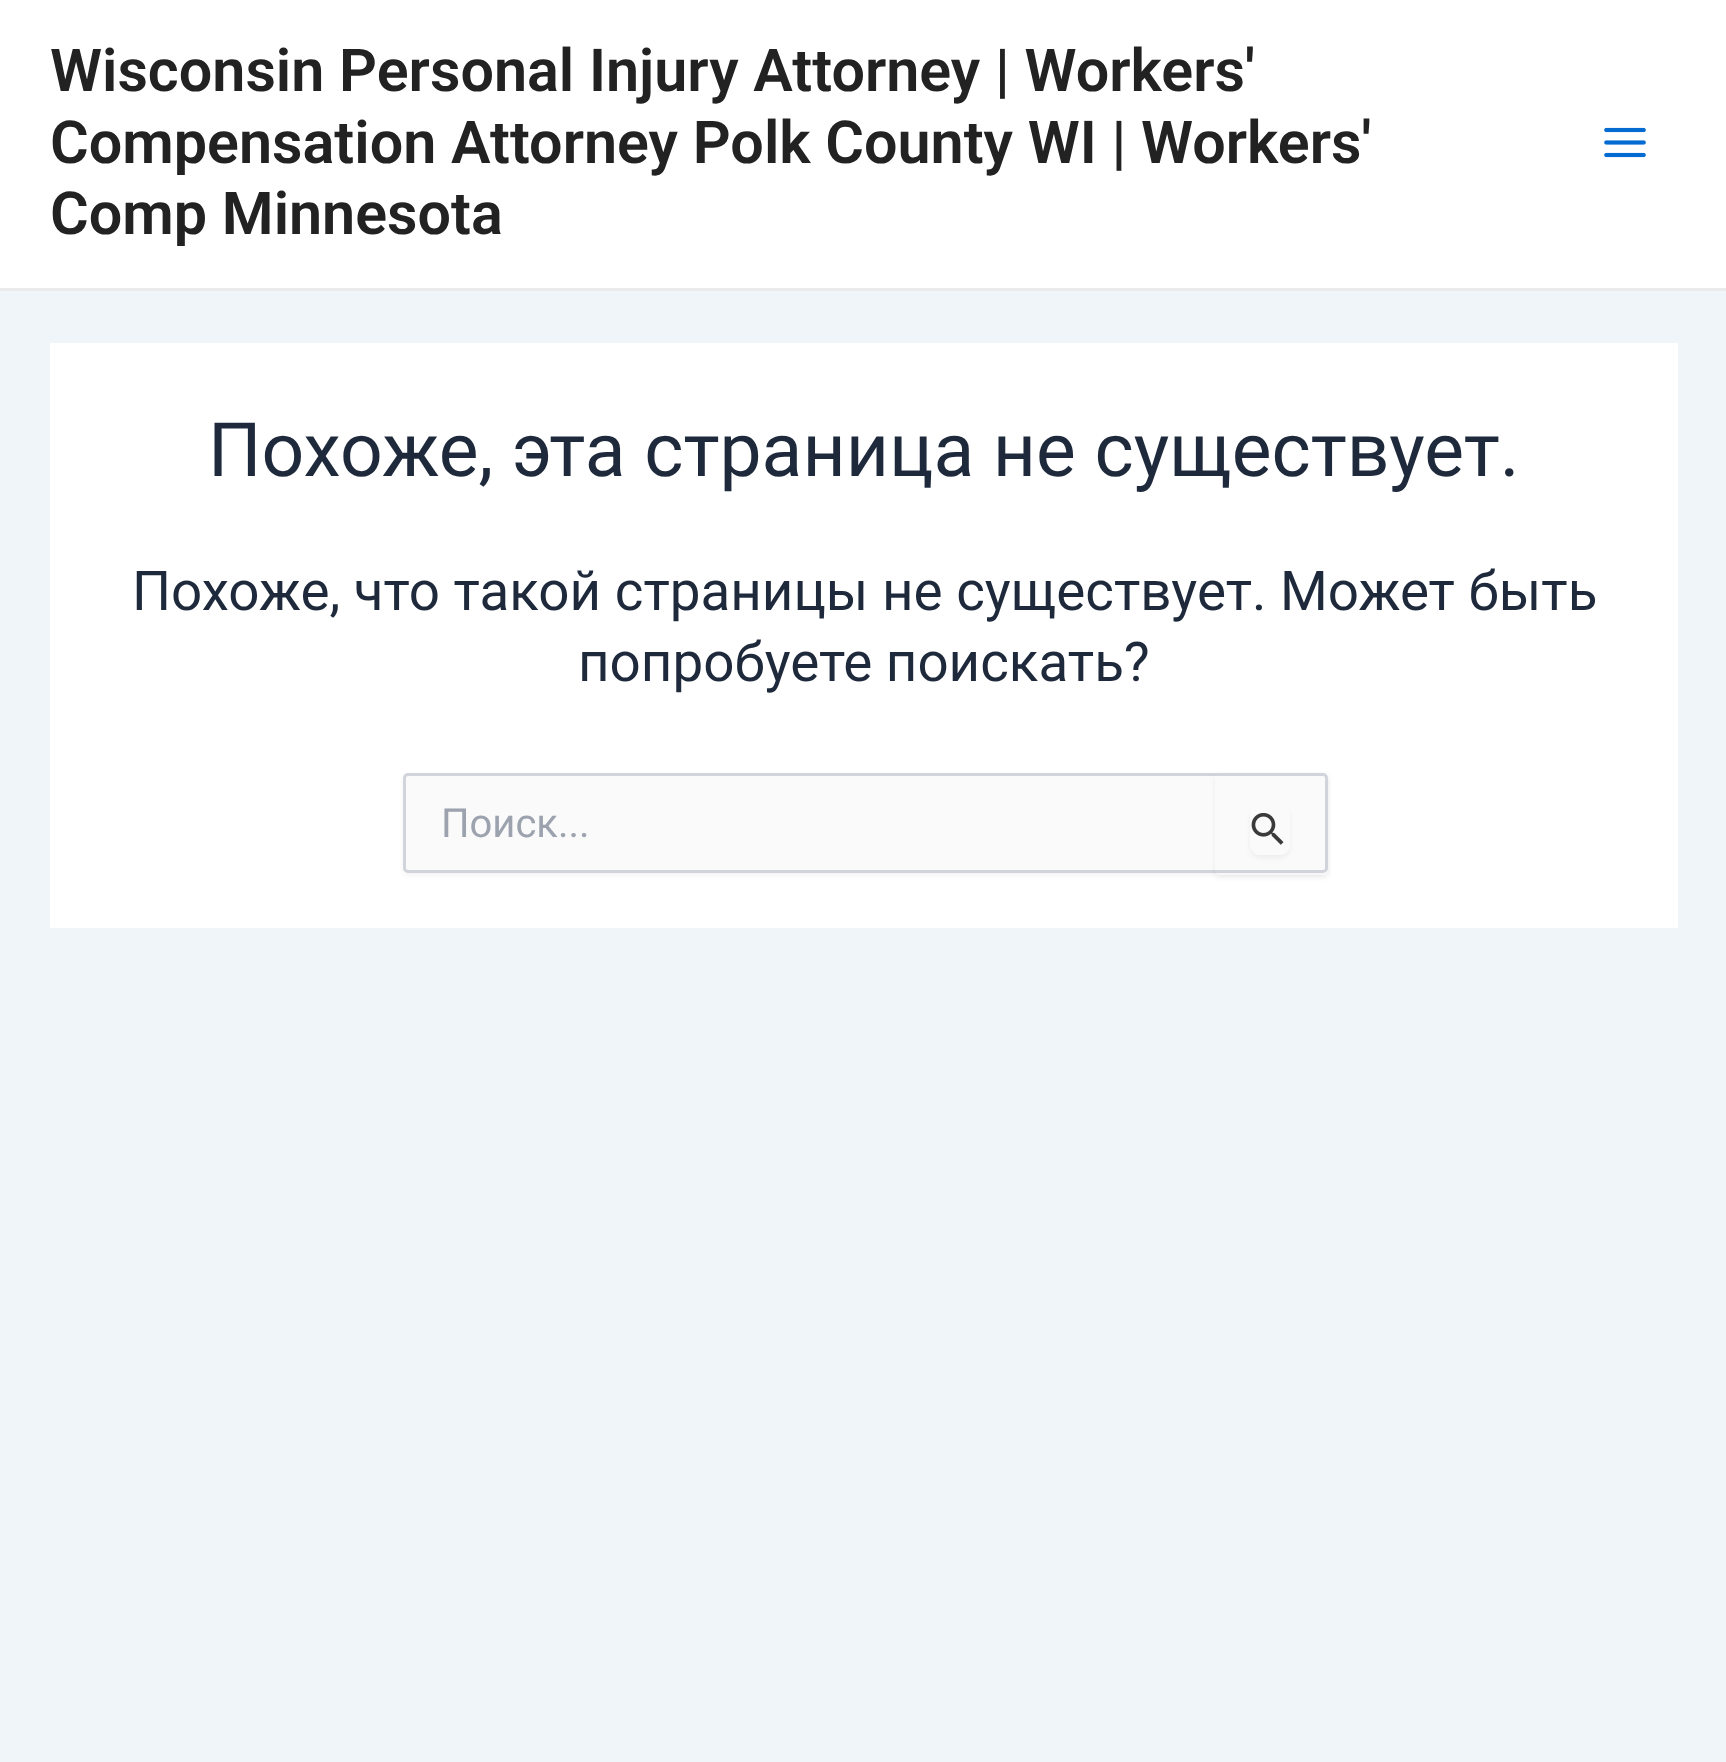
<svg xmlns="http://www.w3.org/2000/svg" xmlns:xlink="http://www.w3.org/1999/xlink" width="1726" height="1762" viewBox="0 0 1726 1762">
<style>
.cls-1{font:600 59.25px Roboto;fill:#222222}
.cls-2{font:75px Roboto;fill:#1e293b}
.cls-3{font:54.75px Roboto;fill:#1e293b}
.cls-4{font:40px Roboto;fill:#9ca3af}
</style>
<defs>
<clipPath id="clip1"><path d="M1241 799H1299V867H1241ZM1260 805H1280C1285.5 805 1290 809.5 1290 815V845C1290 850.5 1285.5 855 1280 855H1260C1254.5 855 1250 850.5 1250 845V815C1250 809.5 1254.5 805 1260 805Z" clip-rule="evenodd"/></clipPath>
<clipPath id="clip2"><path d="M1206 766H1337V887H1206ZM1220 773H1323C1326 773 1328 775 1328 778V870C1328 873 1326 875 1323 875H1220C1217 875 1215 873 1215 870V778C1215 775 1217 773 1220 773Z" clip-rule="evenodd"/></clipPath>
</defs>
<rect width="100%" height="100%" fill="#f0f5fa"/>
<rect fill="#ffffff" x="0" y="0" width="1726" height="288"/>
<rect fill="#eaeaea" x="0" y="288" width="1726" height="3"/>
<image xlink:href="image0.png" x="1604" y="127" width="42" height="31"/>
<rect fill="#ffffff" x="50" y="343" width="1628" height="585"/>
<rect fill="#000000" fill-opacity="0.05" filter="blur(2.5px)" x="403" y="775" width="925" height="100" rx="5"/>
<rect fill="#fafafa" stroke="#d1d5db" stroke-width="3" x="404.5" y="774.5" width="922" height="97" rx="3.5"/>
<g clip-path="url(#clip1)">
<rect fill="#000000" fill-opacity="0.05" filter="blur(2.5px)" x="1250" y="808" width="40" height="50" rx="10"/>
</g>
<image xlink:href="image1.png" x="1251" y="813" width="33" height="32"/>
<g clip-path="url(#clip2)">
<rect fill="#000000" fill-opacity="0.05" filter="blur(2.5px)" x="1215" y="775" width="113" height="103" rx="5"/>
</g>
<text class="cls-1"><tspan x="50" y="91">Wisconsin Personal Injury Attorney | Workers'</tspan><tspan x="50" y="163">Compensation Attorney Polk County WI | Workers'</tspan><tspan x="50" y="234">Comp Minnesota</tspan></text>
<text class="cls-2" x="208" y="476">Похоже, эта страница не существует.</text>
<text class="cls-3" x="132" y="610">Похоже, что такой страницы не существует. Может быть</text>
<text class="cls-3" x="578" y="681">попробуете поискать?</text>
<text class="cls-4" x="441" y="837">Поиск...</text>
</svg>
